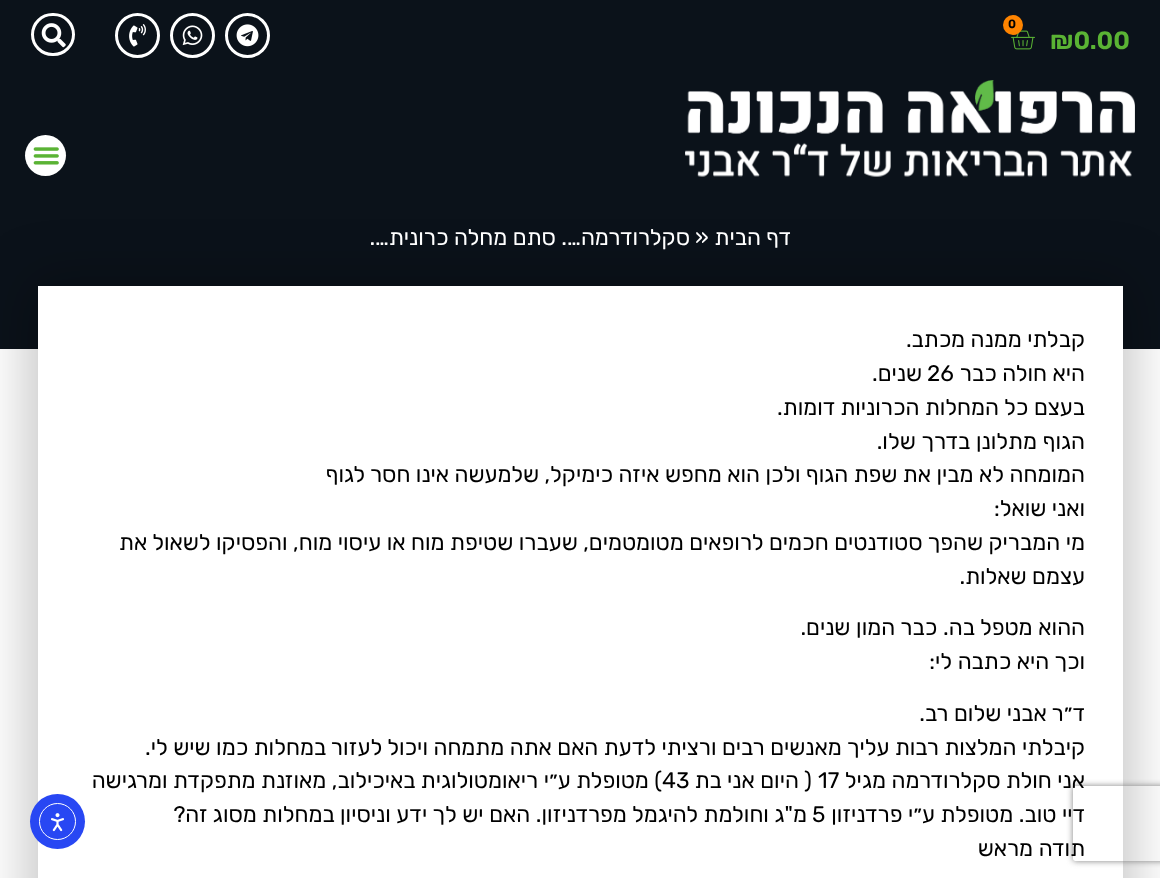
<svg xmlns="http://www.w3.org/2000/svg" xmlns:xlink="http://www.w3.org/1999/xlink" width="1160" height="878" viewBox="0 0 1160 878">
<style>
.cls-1{font:600 12px Rubik;fill:#000000}
.cls-2{font:600 25px Rubik;fill:#5ab334}
.cls-3{font:22.5px Rubik;direction:rtl;fill:#ffffff}
.cls-4{font:22.5px Rubik;fill:#ffffff}
.cls-5{font:22.5px Rubik;direction:rtl;fill:#000000}
.cls-6{font:22.5px Rubik;fill:#000000}
</style>
<defs>
<clipPath id="clip1"><path d="M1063 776H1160V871H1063ZM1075.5 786H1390.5C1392 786 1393 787 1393 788.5V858.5C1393 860 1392 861 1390.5 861H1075.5C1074 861 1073 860 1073 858.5V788.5C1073 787 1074 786 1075.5 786Z" clip-rule="evenodd"/></clipPath>
</defs>
<rect width="100%" height="100%" fill="#ffffff"/>
<rect fill="#0b121a" x="0" y="0" width="1160" height="349"/>
<image xlink:href="image0.png" x="1011" y="30" width="24" height="20"/>
<circle fill="#ff8400" cx="1013" cy="25" r="10"/>
<circle fill="none" stroke="#ffffff" stroke-width="3" cx="247.5" cy="35.5" r="21"/>
<image xlink:href="image1.png" x="236" y="24" width="23" height="23"/>
<circle fill="none" stroke="#ffffff" stroke-width="3" cx="192.5" cy="35.5" r="21"/>
<image xlink:href="image2.png" x="182" y="25" width="21" height="21"/>
<circle fill="none" stroke="#ffffff" stroke-width="3" cx="137.5" cy="35.5" r="21"/>
<image xlink:href="image3.png" x="129" y="24" width="17" height="23"/>
<rect fill="none" stroke="#ffffff" stroke-width="3" x="32.5" y="14.5" width="41" height="40" rx="20"/>
<image xlink:href="image4.png" x="41" y="23" width="25" height="25"/>
<image xlink:href="image5.png" x="685" y="80" width="450" height="97"/>
<circle fill="#ffffff" cx="45.5" cy="155.5" r="20.5"/>
<image xlink:href="image6.png" x="33" y="147" width="26" height="18"/>
<rect fill="#000000" fill-opacity="0.24" filter="blur(27.5px)" x="29" y="278" width="1102" height="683"/>
<rect fill="#ffffff" x="38" y="286" width="1085" height="592"/>
<g clip-path="url(#clip1)">
<rect fill="#808080" filter="blur(3px)" x="1073" y="786" width="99" height="75" rx="2.5"/>
</g>
<circle fill="#2847f3" cx="57.5" cy="821.5" r="27.5"/>
<circle fill="none" stroke="#ffffff" cx="57.5" cy="821.5" r="18"/>
<image xlink:href="image7.png" x="51" y="813" width="13" height="19"/>
<text class="cls-1" x="1008" y="28">0</text>
<text class="cls-2" x="1050" y="49">₪0.00</text>
<text class="cls-3" x="791" y="245">דף הבית</text>
<text class="cls-4" x="695" y="245">»</text>
<text class="cls-3" x="690" y="245">סקלרודרמה…. סתם מחלה כרונית….</text>
<text class="cls-5"><tspan x="1085" y="347">קבלתי ממנה מכתב.</tspan><tspan x="1085" y="381">היא חולה כבר</tspan></text>
<text class="cls-6" x="927" y="381">26</text>
<text class="cls-5" x="922" y="381">שנים.</text>
<text class="cls-5"><tspan x="1085" y="415">בעצם כל המחלות הכרוניות דומות.</tspan><tspan x="1085" y="449" word-spacing="0.5">הגוף מתלונן בדרך שלו.</tspan><tspan x="1085" y="482">המומחה לא מבין את שפת הגוף ולכן הוא מחפש איזה כימיקל, שלמעשה אינו חסר לגוף</tspan><tspan x="1085" y="516">ואני שואל:</tspan><tspan x="1085" y="550">מי המבריק שהפך סטודנטים חכמים לרופאים מטומטמים, שעברו שטיפת מוח או עיסוי מוח, והפסיקו לשאול את</tspan><tspan x="1085" y="584">עצמם שאלות.</tspan></text>
<text class="cls-5"><tspan x="1085" y="635" word-spacing="0.25">ההוא מטפל בה. כבר המון שנים.</tspan><tspan x="1085" y="669">וכך היא כתבה לי:</tspan></text>
<text class="cls-5"><tspan x="1085" y="721">ד״ר אבני שלום רב.</tspan><tspan x="1085" y="755">קיבלתי המלצות רבות עליך מאנשים רבים ורציתי לדעת האם אתה מתמחה ויכול לעזור במחלות כמו שיש לי.</tspan><tspan x="1085" y="788">אני חולת סקלרודרמה מגיל</tspan></text>
<text class="cls-6" x="818" y="788">17</text>
<text class="cls-5" x="812" y="788">( היום אני בת</text>
<text class="cls-6" x="662" y="788">43</text>
<text class="cls-5" x="662" y="788">) מטופלת ע״י ריאומטולוגית באיכילוב, מאוזנת מתפקדת ומרגישה</text>
<text class="cls-5" x="1085" y="822">דיי טוב. מטופלת ע״י פרדניזון</text>
<text class="cls-6" x="812" y="822">5</text>
<text class="cls-5" x="807" y="822" word-spacing="0.1">מ"ג וחולמת להיגמל מפרדניזון. האם יש לך ידע וניסיון במחלות מסוג זה?</text>
<text class="cls-5" x="1085" y="856">תודה מראש</text>
</svg>
